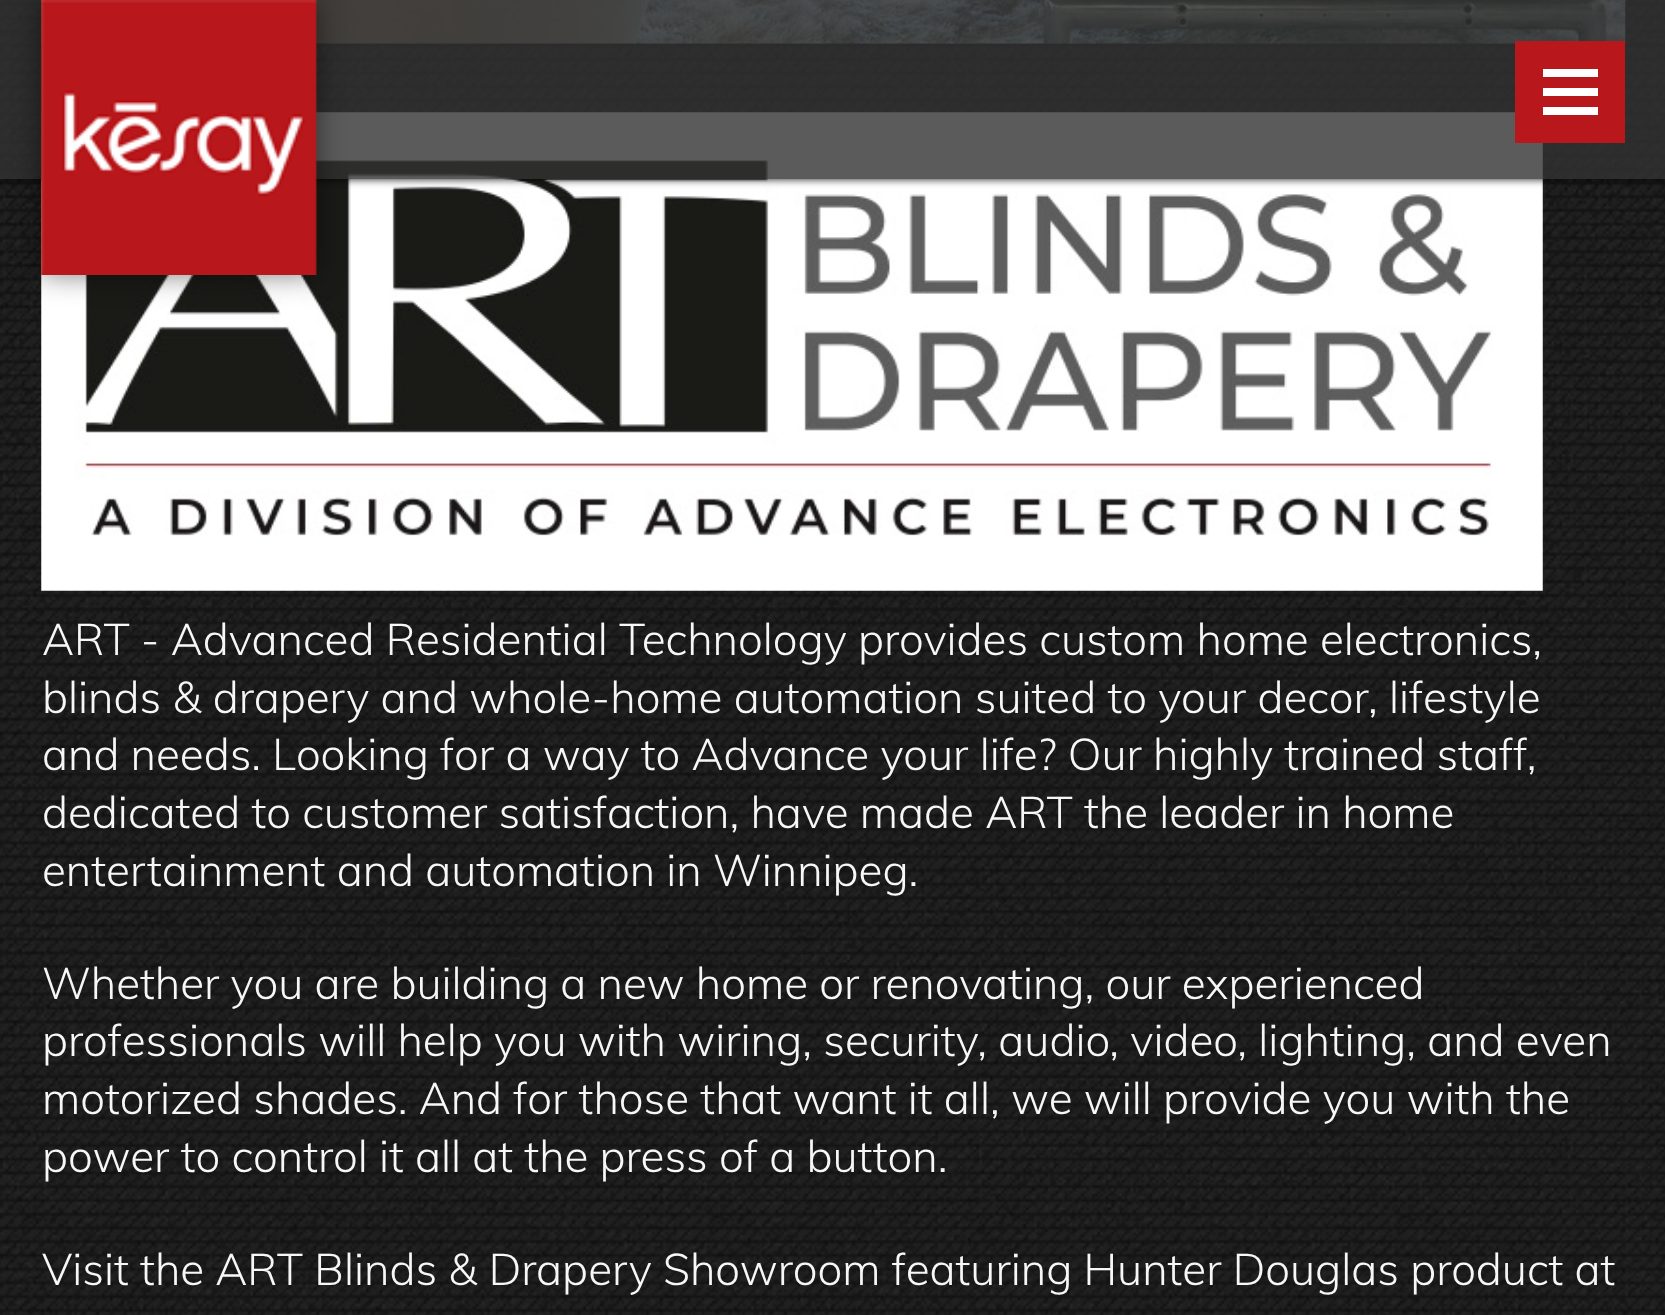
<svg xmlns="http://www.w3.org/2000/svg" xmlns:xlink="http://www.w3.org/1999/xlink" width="1665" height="1315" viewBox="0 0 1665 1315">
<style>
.cls-1{font:300 44px Muli;fill:#f7f7f7}
</style>
<defs>
<clipPath id="clip1"><path d="M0 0H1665V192H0ZM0 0H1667V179H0Z" clip-rule="evenodd"/></clipPath>
</defs>
<rect width="100%" height="100%" fill="#ffffff"/>
<image xlink:href="image0.png" x="0" y="0" width="1665" height="1315"/>
<image xlink:href="image2.png" x="41" y="0" width="1585" height="44"/>
<image xlink:href="image3.png" x="41" y="112" width="1502" height="479"/>
<g clip-path="url(#clip1)">
<rect fill="#000000" fill-opacity="0.9" filter="blur(4px)" x="0" y="0" width="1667" height="179"/>
</g>
<rect fill="#323232" fill-opacity="0.8" x="0" y="0" width="1665" height="179"/>
<rect fill="#000000" fill-opacity="0.5" filter="blur(14px)" x="41" y="0" width="275" height="275"/>
<image xlink:href="image1.png" x="41" y="0" width="276" height="275"/>
<rect fill="#b8181c" x="1515" y="41" width="110" height="102"/>
<rect fill="#ffffff" x="1543" y="69" width="55" height="8"/>
<rect fill="#ffffff" x="1543" y="88" width="55" height="8"/>
<rect fill="#ffffff" x="1543" y="107" width="55" height="8"/>
<text class="cls-1"><tspan x="42" y="655">ART - Advanced Residential Technology provides custom home electronics,</tspan><tspan x="42" y="713">blinds &amp; drapery and whole-home automation suited to your decor, lifestyle</tspan><tspan x="42" y="770">and needs. Looking for a way to Advance your life? Our highly trained staff,</tspan><tspan x="42" y="828">dedicated to customer satisfaction, have made ART the leader in home</tspan><tspan x="42" y="886">entertainment and automation in Winnipeg.</tspan></text>
<text class="cls-1"><tspan x="42" y="999">Whether you are building a new home or renovating, our experienced</tspan><tspan x="42" y="1056">professionals will help you with wiring, security, audio, video, lighting, and even</tspan><tspan x="42" y="1114">motorized shades. And for those that want it all, we will provide you with the</tspan><tspan x="42" y="1172">power to control it all at the press of a button.</tspan></text>
<text class="cls-1" x="42" y="1285">Visit the ART Blinds &amp; Drapery Showroom featuring Hunter Douglas product at</text>
</svg>
